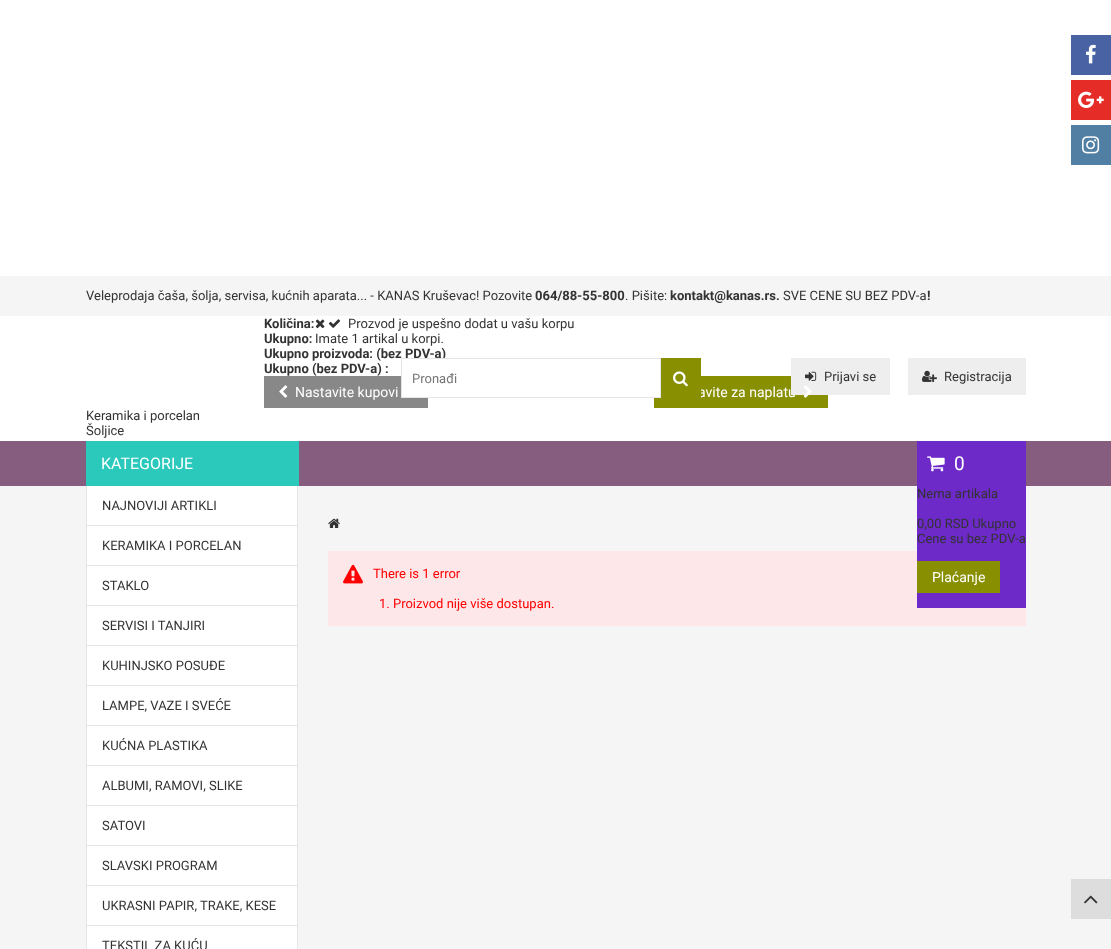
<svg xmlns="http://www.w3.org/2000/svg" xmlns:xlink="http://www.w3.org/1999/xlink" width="1111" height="949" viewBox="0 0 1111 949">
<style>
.cls-1{font:13px Roboto;fill:#333333}
.cls-2{font:bold 13px Roboto;fill:#333333}
.cls-3{font:14px Roboto;fill:#ffffff}
.cls-4{font:13px Roboto;fill:#757575}
.cls-5{font:16px Roboto;fill:#ffffff}
.cls-6{font:19px Roboto;fill:#ffffff}
.cls-7{font:13px Roboto;fill:#ff0000}
</style>
<rect width="100%" height="100%" fill="#ffffff"/>
<rect fill="#4862a3" x="1071" y="35" width="40" height="40"/>
<image xlink:href="image0.png" x="1086" y="44" width="10" height="20"/>
<rect fill="#e52c27" x="1071" y="80" width="40" height="40"/>
<image xlink:href="image1.png" x="1078" y="91" width="26" height="17"/>
<rect fill="#517fa4" x="1071" y="125" width="40" height="40"/>
<image xlink:href="image2.png" x="1082" y="136" width="18" height="18"/>
<rect fill="#f5f5f5" x="0" y="276" width="1111" height="40"/>
<rect fill="#875d7f" x="0" y="441" width="1111" height="45"/>
<image xlink:href="image3.png" x="315" y="319" width="10" height="10"/>
<image xlink:href="image4.png" x="328" y="319" width="13" height="9"/>
<rect fill="#888888" x="264" y="376" width="164" height="32"/>
<image xlink:href="image5.png" x="279" y="385" width="9" height="13"/>
<rect fill="#888f00" x="654" y="376" width="174" height="32"/>
<rect fill="#eeeeee" x="908" y="358" width="118" height="37"/>
<image xlink:href="image8.png" x="922" y="370" width="15" height="12"/>
<rect fill="#2ac9bc" x="86" y="441" width="213" height="45"/>
<rect fill="#f5f5f5" x="0" y="486" width="1111" height="463"/>
<rect fill="#fee7e9" x="328" y="551" width="698" height="75"/>
<rect fill="#6d2ac9" x="917" y="441" width="109" height="167"/>
<image xlink:href="image10.png" x="927" y="456" width="18" height="16"/>
<rect fill="#888f00" x="917" y="561" width="83" height="32"/>
<rect fill="#ffffff" x="87" y="486" width="210" height="463"/>
<rect fill="#e5e5e5" x="297" y="486" width="1" height="463"/>
<rect fill="#e5e5e5" x="86" y="486" width="1" height="463"/>
<rect fill="#e5e5e5" x="87" y="525" width="210" height="1"/>
<rect fill="#e5e5e5" x="87" y="565" width="210" height="1"/>
<rect fill="#e5e5e5" x="87" y="605" width="210" height="1"/>
<rect fill="#e5e5e5" x="87" y="645" width="210" height="1"/>
<rect fill="#e5e5e5" x="87" y="685" width="210" height="1"/>
<rect fill="#e5e5e5" x="87" y="725" width="210" height="1"/>
<rect fill="#e5e5e5" x="87" y="765" width="210" height="1"/>
<rect fill="#e5e5e5" x="87" y="805" width="210" height="1"/>
<rect fill="#e5e5e5" x="87" y="845" width="210" height="1"/>
<rect fill="#e5e5e5" x="87" y="885" width="210" height="1"/>
<rect fill="#e5e5e5" x="87" y="925" width="210" height="1"/>
<image xlink:href="image11.png" x="328" y="518" width="12" height="10"/>
<image xlink:href="image12.png" x="343" y="564" width="20" height="20"/>
<rect fill="#dddddd" x="1071" y="879" width="40" height="40"/>
<image xlink:href="image13.png" x="1084" y="895" width="14" height="9"/>
<text class="cls-1" x="86" y="300">Veleprodaja čaša, šolja, servisa, kućnih aparata... - KANAS Kruševac! Pozovite</text>
<text class="cls-2" x="535" y="300">064/88-55-800</text>
<text class="cls-1" x="625" y="300">. Pišite:</text>
<text class="cls-2" x="670" y="300">kontakt@kanas.rs.</text>
<text class="cls-1" x="783" y="300">SVE CENE SU BEZ PDV-a</text>
<text class="cls-2" x="927" y="300">!</text>
<text class="cls-2"><tspan x="264" y="328">Količina:</tspan><tspan x="264" y="343">Ukupno:</tspan></text>
<text class="cls-1" x="348" y="328">Prozvod je uspešno dodat u vašu korpu</text>
<text class="cls-1" x="315" y="343">Imate 1 artikal u korpi.</text>
<text class="cls-2"><tspan x="264" y="358">Ukupno proizvoda: (bez PDV-a)</tspan><tspan x="264" y="373">Ukupno (bez PDV-a) :</tspan></text>
<text class="cls-3" x="295" y="397">Nastavite kupovi</text>
<text class="cls-3" x="698" y="397">avite za naplatu</text>
<rect fill="#eeeeee" x="791" y="358" width="99" height="37"/>
<image xlink:href="image6.png" x="803" y="385" width="9" height="13"/>
<image xlink:href="image7.png" x="805" y="371" width="12" height="10"/>
<text class="cls-1" x="824" y="381">Prijavi se</text>
<text class="cls-1" x="944" y="381">Registracija</text>
<rect fill="#ffffff" stroke="#e5e5e5" x="401.5" y="358.5" width="259" height="39"/>
<text class="cls-4" x="412" y="383">Pronađi</text>
<rect fill="#888f00" x="661" y="358" width="40" height="40"/>
<image xlink:href="image9.png" x="673" y="371" width="15" height="16"/>
<text class="cls-1"><tspan x="86" y="420">Keramika i porcelan</tspan><tspan x="86" y="435">Šoljice</tspan></text>
<text class="cls-5" x="101" y="469">KATEGORIJE</text>
<text class="cls-6" x="954" y="470">0</text>
<text class="cls-1" x="917" y="498">Nema artikala</text>
<text class="cls-1"><tspan x="917" y="528">0,00 RSD Ukupno</tspan><tspan x="917" y="543">Cene su bez PDV-a</tspan></text>
<text class="cls-3" x="932" y="582">Plaćanje</text>
<text class="cls-1" x="102" y="510">NAJNOVIJI ARTIKLI</text>
<text class="cls-1" x="102" y="550">KERAMIKA I PORCELAN</text>
<text class="cls-1" x="102" y="590">STAKLO</text>
<text class="cls-1" x="102" y="630">SERVISI I TANJIRI</text>
<text class="cls-1" x="102" y="670">KUHINJSKO POSUĐE</text>
<text class="cls-1" x="102" y="710">LAMPE, VAZE I SVEĆE</text>
<text class="cls-1" x="102" y="750">KUĆNA PLASTIKA</text>
<text class="cls-1" x="102" y="790">ALBUMI, RAMOVI, SLIKE</text>
<text class="cls-1" x="102" y="830">SATOVI</text>
<text class="cls-1" x="102" y="870">SLAVSKI PROGRAM</text>
<text class="cls-1" x="102" y="910">UKRASNI PAPIR, TRAKE, KESE</text>
<text class="cls-1" x="102" y="950">TEKSTIL ZA KUĆU</text>
<text class="cls-7" x="373" y="578">There is 1 error</text>
<text class="cls-7" x="379" y="608">1. Proizvod nije više dostupan.</text>
</svg>
